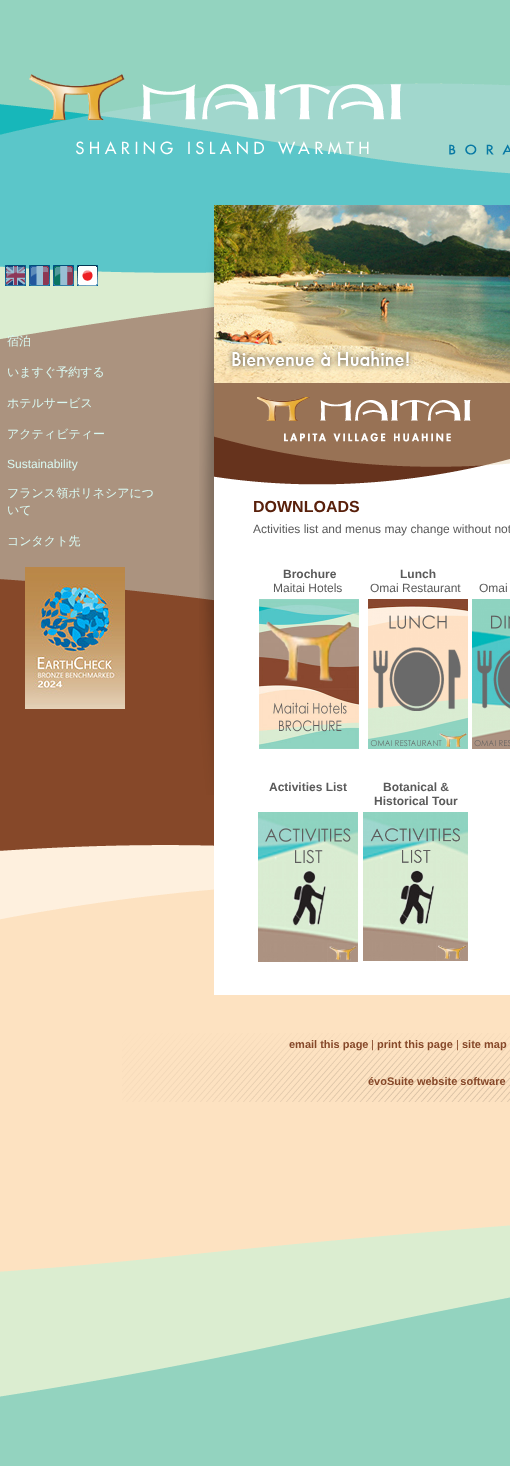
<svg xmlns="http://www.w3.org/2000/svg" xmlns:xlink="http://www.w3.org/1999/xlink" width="510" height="1466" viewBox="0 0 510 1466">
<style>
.cls-1{font:500 12px WenQuanYi Zen Hei;fill:#d9f8f1}
.cls-2{font:12px Liberation Sans;fill:#d9f8f1}
.cls-3{font:bold 16px Liberation Sans;fill:#59200b}
.cls-4{font:12px Liberation Sans;fill:#5a5a5a}
.cls-5{font:bold 12px Liberation Sans;fill:#5a5a5a}
.cls-6{font:bold 11px Liberation Sans;fill:#864829}
.cls-7{font:11px Liberation Sans;fill:#864829}
</style>
<rect width="100%" height="100%" fill="#93d3bf"/>
<image xlink:href="image0.png" x="0" y="83" width="510" height="1314"/>
<image xlink:href="image1.png" x="29" y="74" width="481" height="81"/>
<image xlink:href="image2.png" x="5" y="265" width="21" height="21"/>
<image xlink:href="image3.png" x="29" y="265" width="21" height="21"/>
<image xlink:href="image4.png" x="53" y="265" width="21" height="21"/>
<image xlink:href="image5.png" x="77" y="265" width="21" height="21"/>
<image xlink:href="image6.png" x="25" y="567" width="100" height="142"/>
<image xlink:href="image7.png" x="199" y="242" width="15" height="553"/>
<rect fill="#ffffff" x="214" y="485" width="296" height="510"/>
<image xlink:href="image8.png" x="214" y="205" width="296" height="178"/>
<image xlink:href="image9.png" x="214" y="383" width="296" height="102"/>
<image xlink:href="image10.png" x="259" y="599" width="100" height="150"/>
<image xlink:href="image11.png" x="368" y="599" width="100" height="150"/>
<image xlink:href="image12.png" x="472" y="599" width="38" height="150"/>
<image xlink:href="image13.png" x="258" y="812" width="100" height="150"/>
<image xlink:href="image14.png" x="363" y="812" width="105" height="149"/>
<image xlink:href="image15.png" x="122" y="1033" width="388" height="69"/>
<text class="cls-1" x="7" y="345">宿泊</text>
<text class="cls-1" x="7" y="376">いますぐ予約する</text>
<text class="cls-1" x="7" y="407">ホテルサービス</text>
<text class="cls-1" x="7" y="438">アクティビティー</text>
<text class="cls-2" x="7" y="468">Sustainability</text>
<text class="cls-1"><tspan x="7" y="497">フランス領ポリネシアにつ</tspan><tspan x="7" y="514">いて</tspan></text>
<text class="cls-1" x="7" y="545">コンタクト先</text>
<text class="cls-3" x="253" y="512">DOWNLOADS</text>
<text class="cls-4" x="253" y="533">Activities list and menus may change without not</text>
<text class="cls-5" x="283" y="578">Brochure</text>
<text class="cls-4" x="273" y="592">Maitai Hotels</text>
<text class="cls-5" x="400" y="578">Lunch</text>
<text class="cls-4" x="370" y="592">Omai Restaurant</text>
<text class="cls-4" x="479" y="592">Omai</text>
<text class="cls-5" x="269" y="791">Activities List</text>
<text class="cls-5" x="383" y="791">Botanical &amp;</text>
<text class="cls-5" x="374" y="805">Historical Tour</text>
<text class="cls-6" x="289" y="1048">email this page</text>
<text class="cls-7" x="371" y="1048">|</text>
<text class="cls-6" x="377" y="1048">print this page</text>
<text class="cls-7" x="456" y="1048">|</text>
<text class="cls-6" x="462" y="1048">site map</text>
<text class="cls-6" x="368" y="1085">évoSuite website software</text>
</svg>
